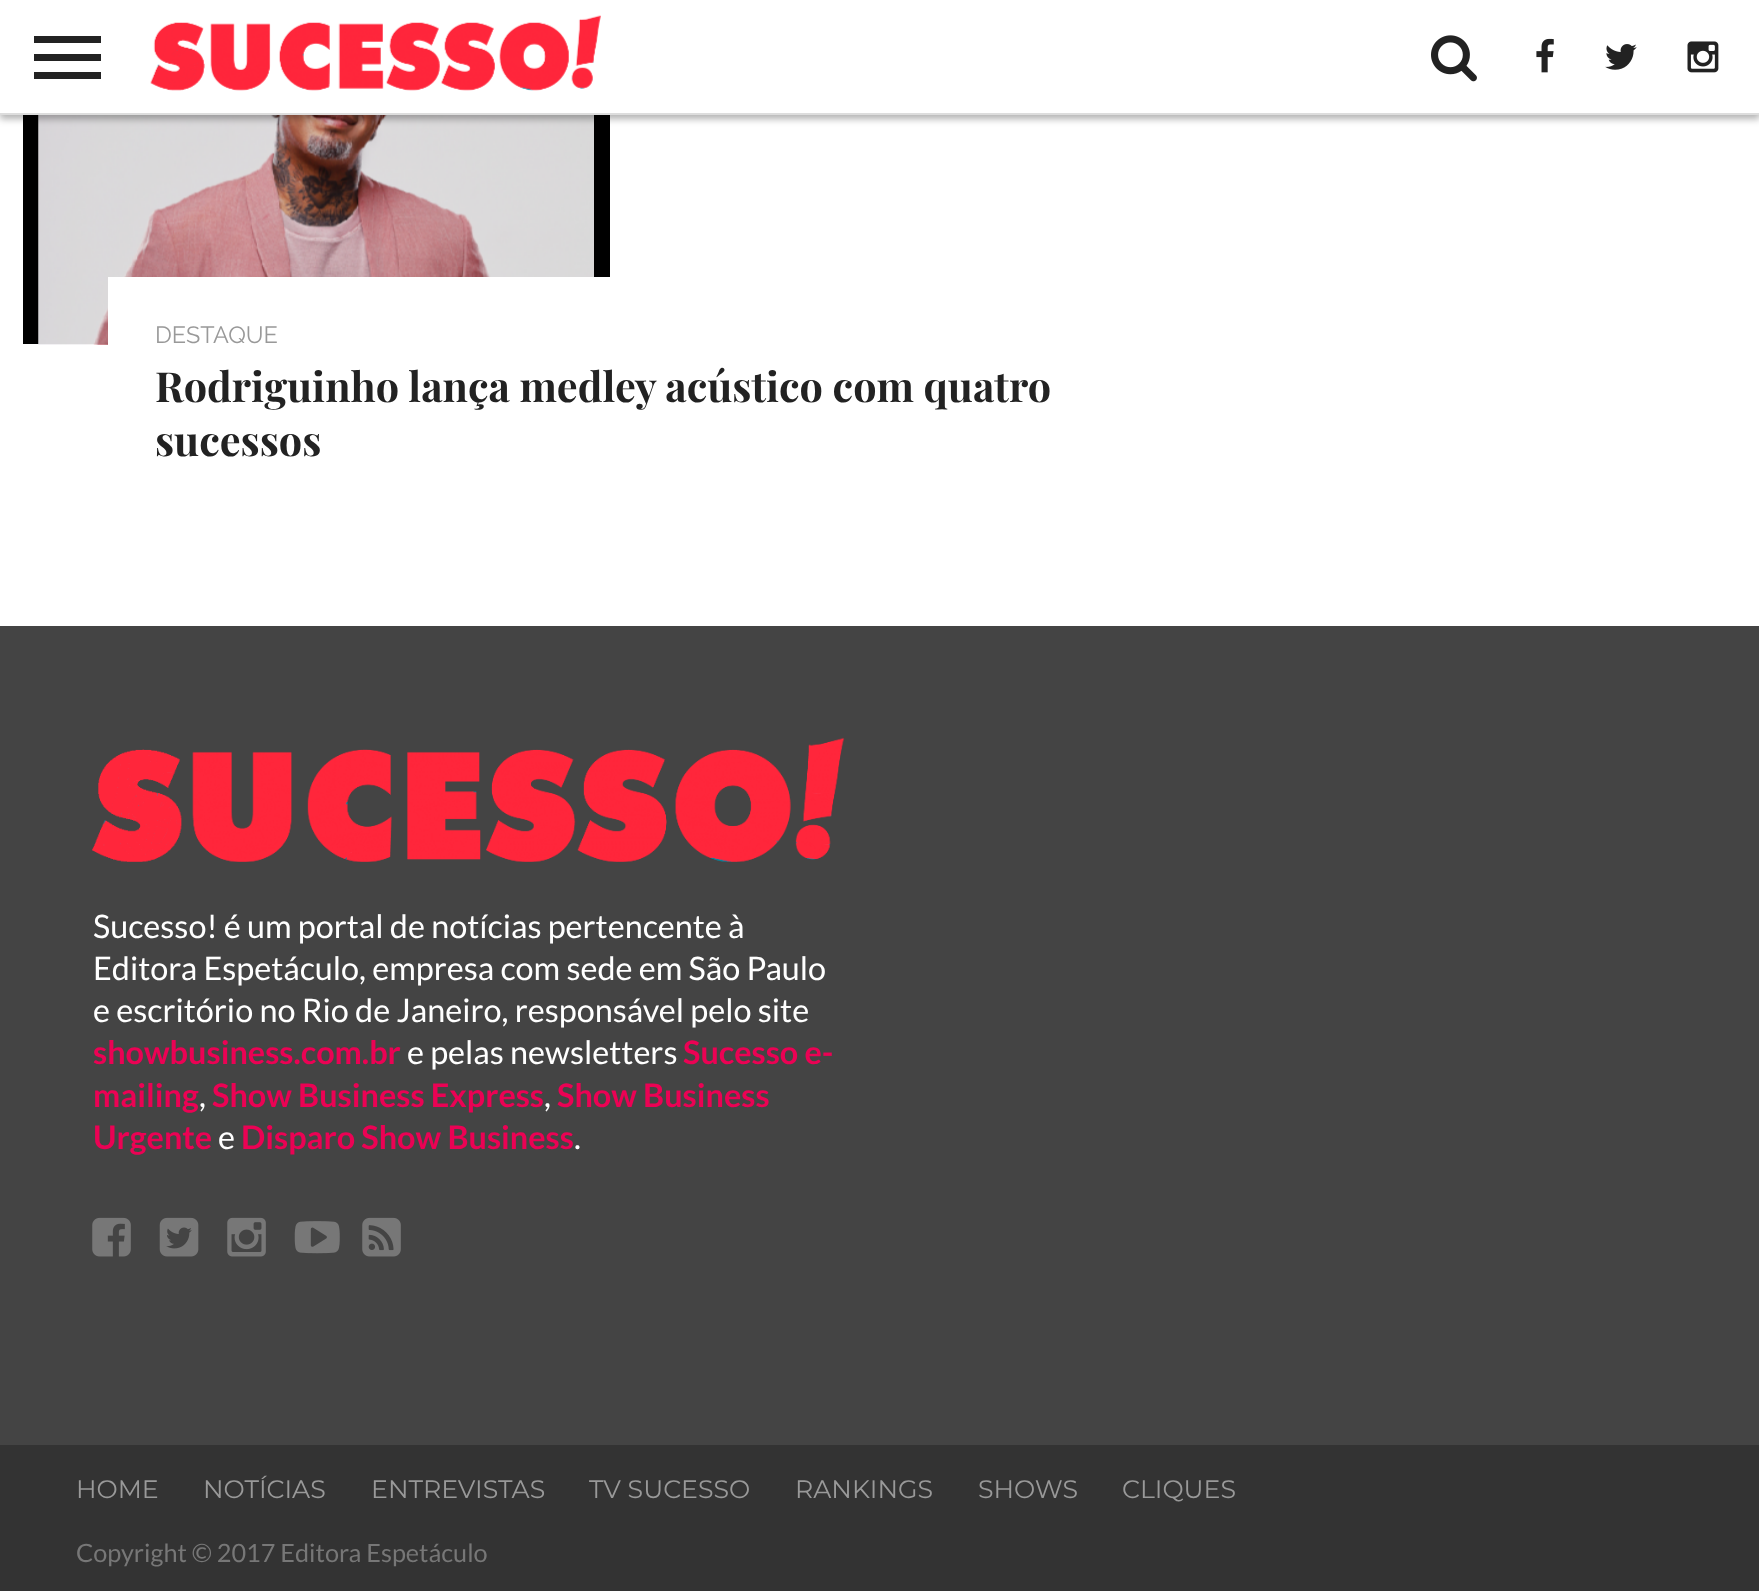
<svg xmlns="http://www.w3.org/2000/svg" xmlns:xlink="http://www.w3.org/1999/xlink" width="1759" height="1591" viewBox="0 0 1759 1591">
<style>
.cls-1{font:23.5px Raleway;fill:#999999}
.cls-2{font:bold 41.4px Playfair Display;fill:#222222}
.cls-3{font:32.4px Lato;fill:#ffffff}
.cls-4{font:bold 32.4px Lato;fill:#eb0254}
.cls-5{font:25.25px Montserrat;fill:#999999}
.cls-6{font:25.25px Lato;fill:#777777}
</style>
<rect width="100%" height="100%" fill="#ffffff"/>
<rect fill="#000000" x="23" y="115" width="587" height="229"/>
<image xlink:href="image5.png" x="38" y="115" width="556" height="230"/>
<rect fill="#000000" fill-opacity="0.3" filter="blur(3.5px)" x="0" y="5" width="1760" height="114"/>
<rect fill="#ffffff" x="0" y="0" width="1759" height="113"/>
<rect fill="#dddddd" x="0" y="113" width="1759" height="2"/>
<rect fill="#222222" x="34" y="36" width="67" height="7"/>
<rect fill="#222222" x="34" y="54" width="67" height="7"/>
<rect fill="#222222" x="34" y="72" width="67" height="7"/>
<image xlink:href="image0.png" x="150" y="15" width="451" height="76"/>
<image xlink:href="image1.png" x="1431" y="35" width="46" height="47"/>
<image xlink:href="image2.png" x="1536" y="38" width="18" height="35"/>
<image xlink:href="image3.png" x="1605" y="44" width="32" height="26"/>
<image xlink:href="image4.png" x="1687" y="41" width="32" height="32"/>
<rect fill="#ffffff" x="108" y="277" width="502" height="68"/>
<rect fill="#444444" x="0" y="626" width="1759" height="819"/>
<image xlink:href="image6.png" x="92" y="737" width="753" height="125"/>
<image xlink:href="image7.png" x="92" y="1217" width="39" height="40"/>
<image xlink:href="image8.png" x="159" y="1217" width="40" height="40"/>
<image xlink:href="image9.png" x="227" y="1217" width="39" height="40"/>
<image xlink:href="image10.png" x="294" y="1221" width="46" height="33"/>
<image xlink:href="image11.png" x="362" y="1217" width="39" height="40"/>
<rect fill="#333333" x="0" y="1445" width="1759" height="146"/>
<text class="cls-1" x="155" y="343">DESTAQUE</text>
<text class="cls-2"><tspan x="155" y="402">Rodriguinho lança medley acústico com quatro</tspan><tspan x="155" y="456">sucessos</tspan></text>
<text class="cls-3"><tspan x="93" y="938">Sucesso! é um portal de notícias pertencente à</tspan><tspan x="93" y="980">Editora Espetáculo, empresa com sede em São Paulo</tspan><tspan x="93" y="1022">e escritório no Rio de Janeiro, responsável pelo site</tspan></text>
<text class="cls-4" x="93" y="1064">showbusiness.com.br</text>
<text class="cls-3" x="407" y="1064">e pelas newsletters</text>
<text class="cls-4" x="683" y="1064">Sucesso e-</text>
<text class="cls-4" x="93" y="1107">mailing</text>
<text class="cls-3" x="199" y="1107">,</text>
<text class="cls-4" x="212" y="1107">Show Business Express</text>
<text class="cls-3" x="544" y="1107">,</text>
<text class="cls-4" x="557" y="1107">Show Business</text>
<text class="cls-4" x="93" y="1149">Urgente</text>
<text class="cls-3" x="218" y="1149">e</text>
<text class="cls-4" x="241" y="1149">Disparo Show Business</text>
<text class="cls-3" x="574" y="1149">.</text>
<text class="cls-5" x="76" y="1498">HOME</text>
<text class="cls-5" x="203" y="1498">NOTÍCIAS</text>
<text class="cls-5" x="371" y="1498">ENTREVISTAS</text>
<text class="cls-5" x="589" y="1498">TV SUCESSO</text>
<text class="cls-5" x="795" y="1498">RANKINGS</text>
<text class="cls-5" x="978" y="1498">SHOWS</text>
<text class="cls-5" x="1122" y="1498">CLIQUES</text>
<text class="cls-6" x="76" y="1562">Copyright © 2017 Editora Espetáculo</text>
</svg>
